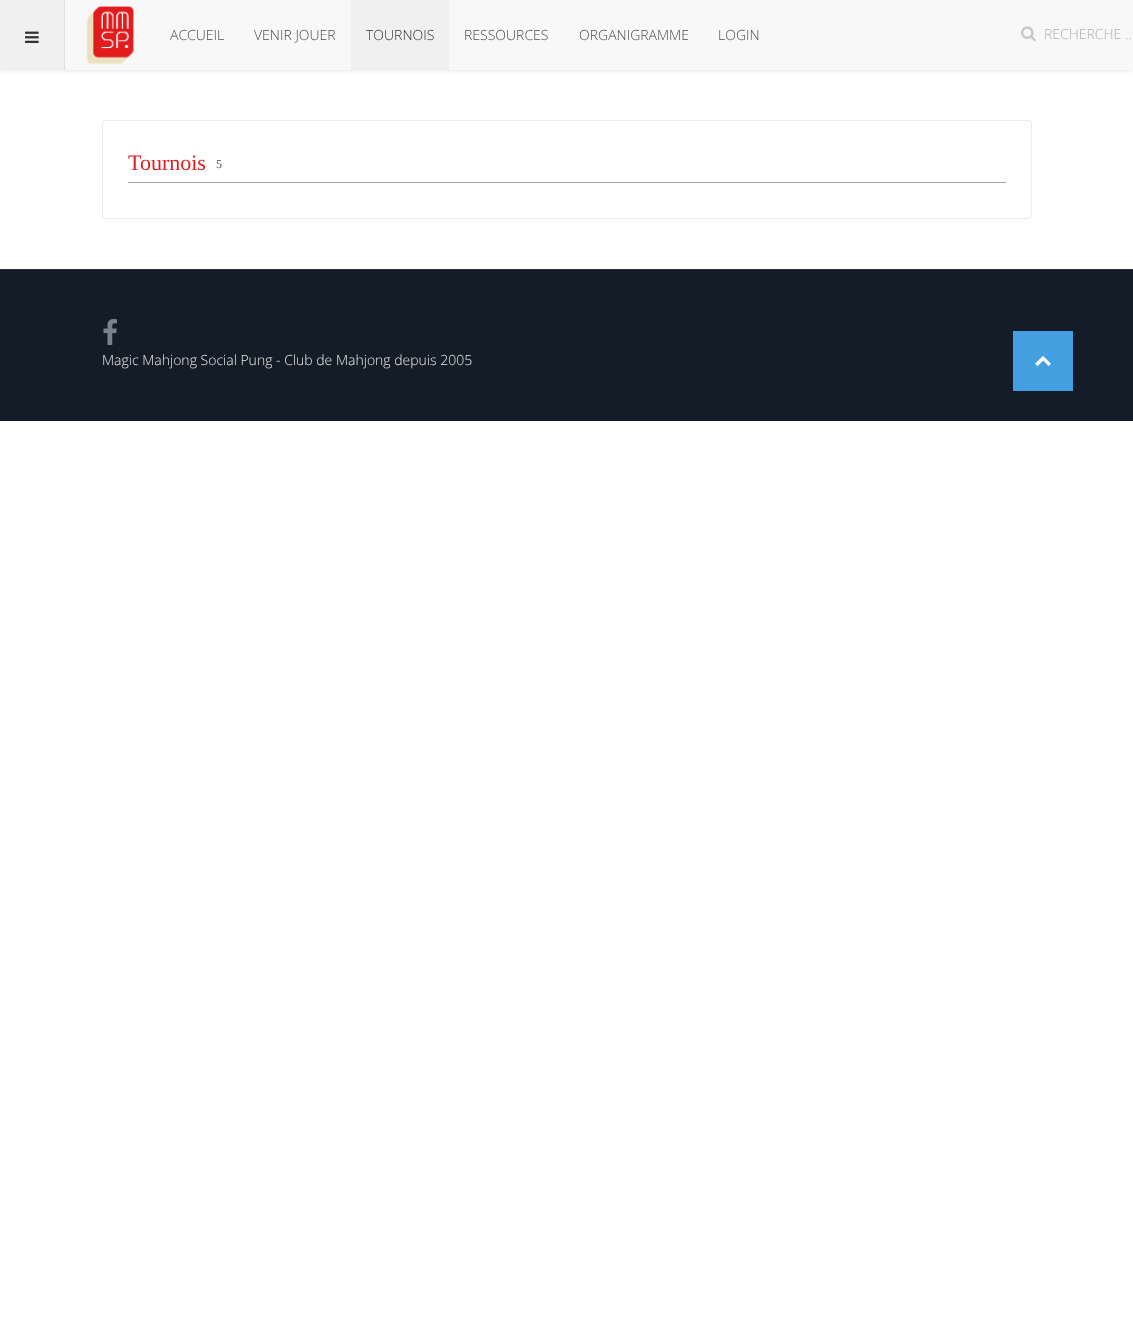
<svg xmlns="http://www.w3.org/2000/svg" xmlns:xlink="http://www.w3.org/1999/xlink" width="1133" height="1335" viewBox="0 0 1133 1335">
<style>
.cls-1{font:300 14px Open Sans;fill:#4b4b4b}
.cls-2{font:300 14px Open Sans;fill:#333333}
.cls-3{font:300 14px Open Sans;fill:#aeaeae}
.cls-4{font:22px Liberation Serif;fill:#e21c1d}
.cls-5{font:12px Liberation Serif;fill:#4b4b4b}
.cls-6{font:300 14px Open Sans;fill:#ebecea}
</style>
<rect width="100%" height="100%" fill="#ffffff"/>
<rect fill="#000000" fill-opacity="0.15" filter="blur(2px)" x="0" y="0" width="1133" height="70"/>
<rect fill="#f8f8f8" x="65" y="0" width="1068" height="70"/>
<rect fill="#eff0ef" x="0" y="0" width="64" height="70"/>
<rect fill="#dedede" x="64" y="0" width="1" height="70"/>
<image xlink:href="image0.png" x="25" y="31" width="14" height="12"/>
<image xlink:href="image1.png" x="86" y="5" width="48" height="60"/>
<rect fill="#eff0ef" x="351" y="0" width="98" height="70"/>
<image xlink:href="image2.png" x="1021" y="26" width="15" height="16"/>
<rect fill="none" stroke="#eaeaea" x="102.5" y="120.5" width="929" height="98" rx="3.5"/>
<rect fill="#a5a5a5" x="128" y="182" width="878" height="1"/>
<rect fill="#131c27" x="0" y="270" width="1133" height="151"/>
<rect fill="#2b333d" x="0" y="269" width="1133" height="1"/>
<image xlink:href="image3.png" x="103" y="319" width="14" height="26"/>
<rect fill="#439fe0" x="1013" y="331" width="60" height="60"/>
<image xlink:href="image4.png" x="1035" y="356" width="16" height="11"/>
<text class="cls-1" x="170" y="40">ACCUEIL</text>
<text class="cls-1" x="254" y="40">VENIR JOUER</text>
<text class="cls-2" x="366" y="40">TOURNOIS</text>
<text class="cls-1" x="464" y="40">RESSOURCES</text>
<text class="cls-1" x="579" y="40">ORGANIGRAMME</text>
<text class="cls-1" x="718" y="40">LOGIN</text>
<text class="cls-3" x="1044" y="39">RECHERCHE ..</text>
<text class="cls-4" x="128" y="170">Tournois</text>
<text class="cls-5" x="216" y="168">5</text>
<text class="cls-6" x="102" y="365">Magic Mahjong Social Pung - Club de Mahjong depuis 2005</text>
</svg>
